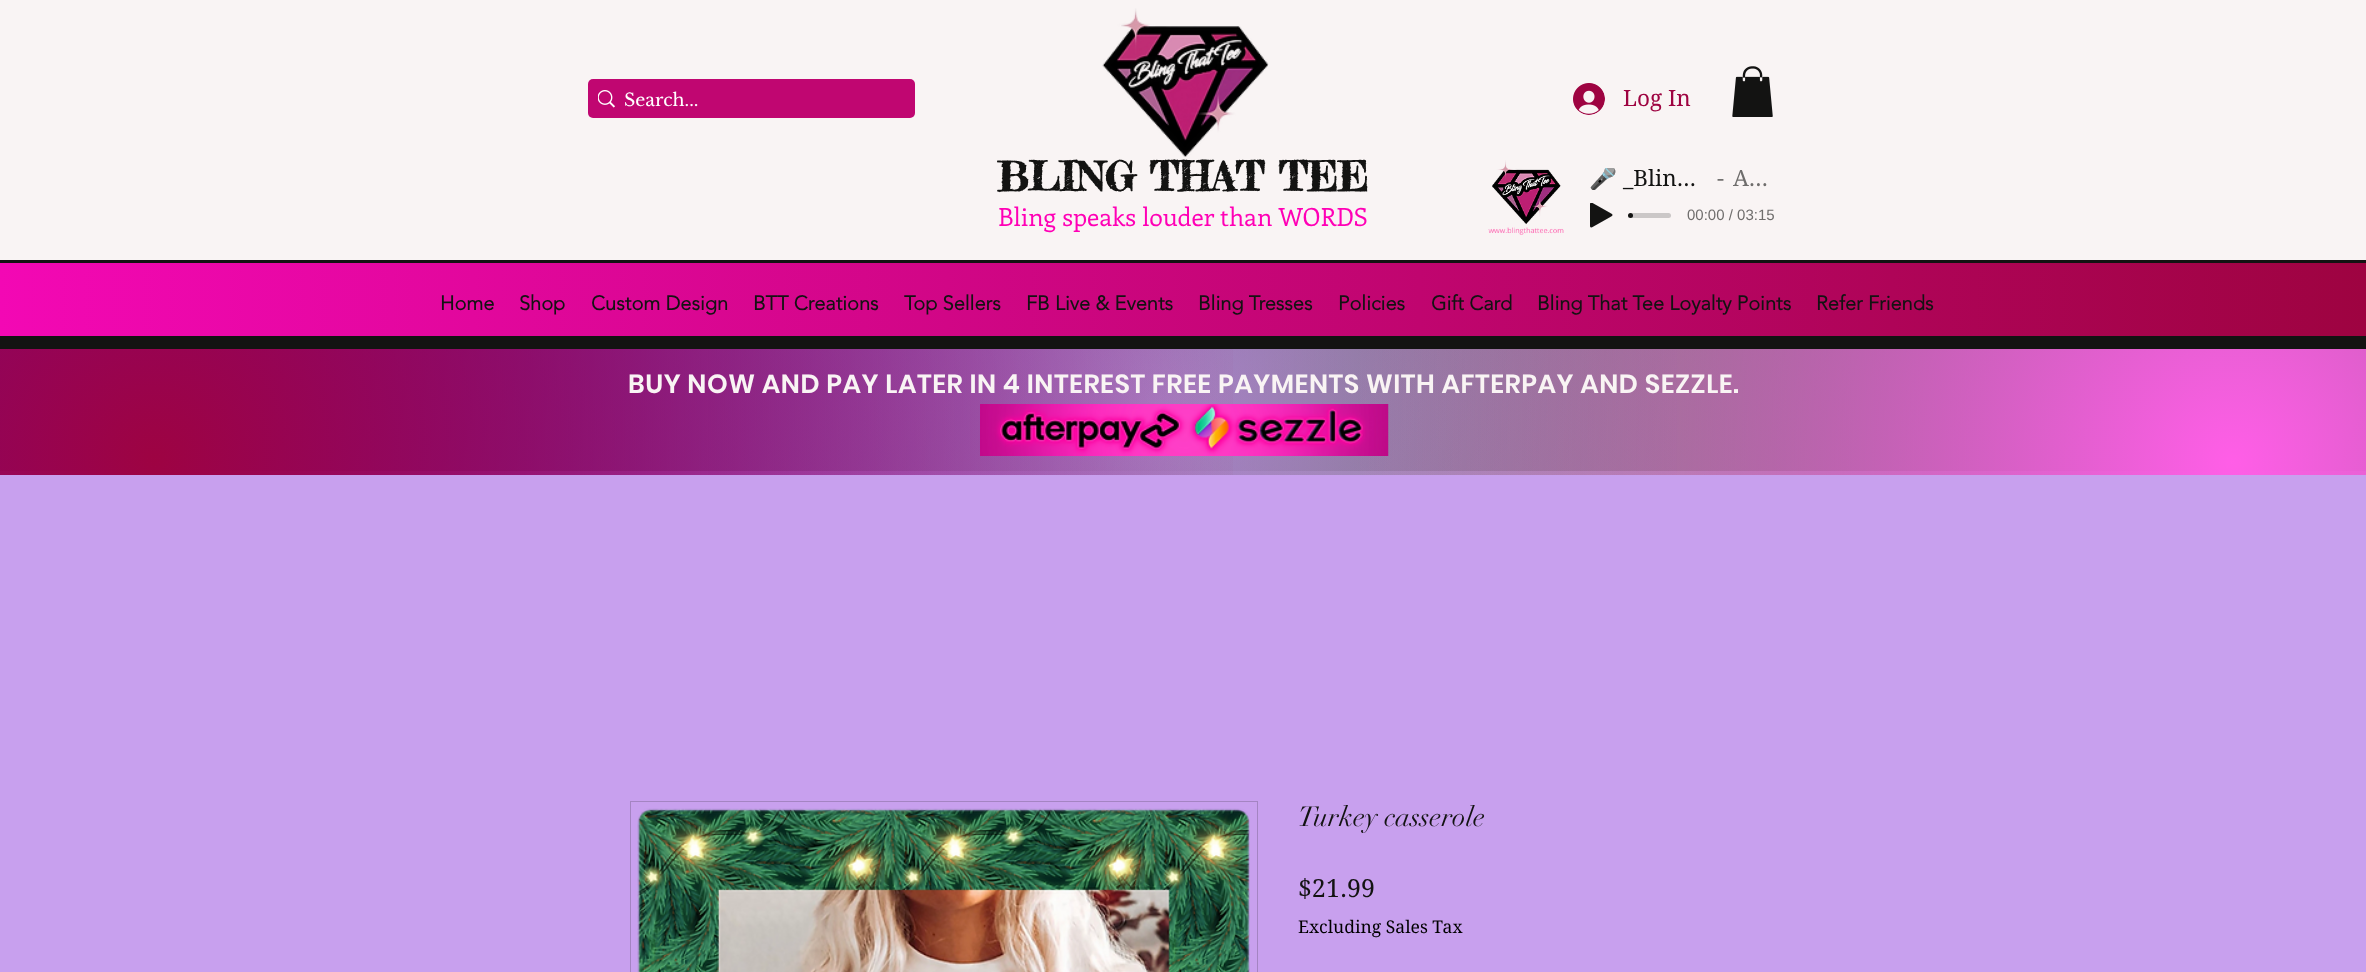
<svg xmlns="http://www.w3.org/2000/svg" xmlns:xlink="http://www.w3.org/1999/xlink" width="2366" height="972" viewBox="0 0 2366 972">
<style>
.cls-1{font:17.5px Libre Baskerville;fill:#ffffff}
.cls-2{font:22.5px 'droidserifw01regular';fill:#9e0341}
.cls-3{font:bold 40px Fredericka the Great;fill:#131312}
.cls-4{font:25px Enriqueta;fill:#ff00b6}
.cls-5{font:22.5px Noto Color Emoji;fill:#131312}
.cls-6{font:22.5px 'droidserifw01regular';fill:#131312}
.cls-7{font:22.5px 'droidserifw01regular';fill:#6f6d6c}
.cls-8{font:15px Liberation Sans;fill:#6f6d6c}
.cls-9{font:bold 20px 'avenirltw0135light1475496';fill:#131312}
.cls-10{font:600 26.25px Poppins;letter-spacing:0.53px;fill:#f9f4f4}
.cls-11{font:27.5px didot;fill:#131312}
.cls-12{font:25px 'droidserifw01regular';fill:#131312}
.cls-13{font:17.5px 'droidserifw01regular';fill:#000000}
</style>
<defs>
<linearGradient id="g1" gradientUnits="userSpaceOnUse" x1="0" y1="299" x2="2366" y2="299"><stop offset="0" stop-color="#f308b4"/><stop offset="1" stop-color="#9e0341"/></linearGradient>
<radialGradient id="g2" gradientUnits="userSpaceOnUse" cx="1157" cy="411" r="1211"><stop offset="0" stop-color="#f9f4f4"/><stop offset="1" stop-color="#f9f4f4" stop-opacity="0"/></radialGradient>
<radialGradient id="g3" gradientUnits="userSpaceOnUse" cx="2217" cy="363" r="2220"><stop offset="0" stop-color="#666666"/><stop offset="0.7" stop-color="#666666" stop-opacity="0"/></radialGradient>
<radialGradient id="g4" gradientUnits="userSpaceOnUse" cx="146" cy="365" r="2223"><stop offset="0" stop-color="#6903cc"/><stop offset="0.7" stop-color="#6903cc" stop-opacity="0"/></radialGradient>
<radialGradient id="g5" gradientUnits="userSpaceOnUse" cx="154" cy="460" r="2215"><stop offset="0" stop-color="#9e0341" stop-opacity="0.99"/><stop offset="0.5" stop-color="#9e0341" stop-opacity="0"/></radialGradient>
<radialGradient id="g6" gradientUnits="userSpaceOnUse" cx="2233" cy="462" r="2236"><stop offset="0" stop-color="#ff5ee7"/><stop offset="0.4" stop-color="#ff5ee7" stop-opacity="0"/></radialGradient>
<clipPath id="clip1"><rect x="1590" y="168" width="119" height="22"/></clipPath>
</defs>
<rect width="100%" height="100%" fill="#c8a0ee"/>
<rect fill="#f9f4f4" x="0" y="0" width="2366" height="260"/>
<rect fill="#c00671" x="588" y="79" width="327" height="39" rx="5"/>
<image xlink:href="image0.png" x="598" y="90" width="17" height="18"/>
<image xlink:href="image1.png" x="1102" y="8" width="167" height="149"/>
<image xlink:href="image2.png" x="1573" y="83" width="32" height="32"/>
<image xlink:href="image3.png" x="1732" y="66" width="41" height="51"/>
<image xlink:href="image4.png" x="1488" y="160" width="76" height="75"/>
<image xlink:href="image5.png" x="1590" y="203" width="23" height="25"/>
<rect fill="#cbc7c7" x="1630" y="213" width="41" height="5" rx="2.5"/>
<circle fill="#131312" cx="1630.5" cy="215.5" r="2.5"/>
<rect fill="#131312" x="0" y="260" width="2366" height="211"/>
<rect fill="url(#g1)" x="0" y="263" width="2366" height="73"/>
<rect fill="url(#g2)" x="0" y="349" width="2344" height="126"/>
<rect fill="url(#g3)" x="708" y="349" width="1658" height="126"/>
<rect fill="url(#g4)" x="0" y="349" width="1677" height="126"/>
<rect fill="url(#g5)" x="0" y="349" width="1233" height="126"/>
<rect fill="url(#g6)" x="1360" y="349" width="1006" height="126"/>
<image xlink:href="image6.png" x="980" y="404" width="409" height="52"/>
<rect fill="none" stroke="#a484c2" x="630.5" y="801.5" width="627" height="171"/>
<image xlink:href="image7.png" x="637" y="808" width="613" height="164"/>
<text class="cls-1" x="624" y="106">Search...</text>
<text class="cls-2" x="1623" y="106">Log In</text>
<text class="cls-3" x="997" y="191">BLING THAT TEE</text>
<text class="cls-4" x="998" y="226">Bling speaks louder than WORDS</text>
<g clip-path="url(#clip1)">
<text class="cls-5" x="1589" y="186">🎤</text>
</g>
<text class="cls-6" x="1623" y="186">_Blin…</text>
<text class="cls-7" x="1717" y="186">-</text>
<text class="cls-7" x="1733" y="186">A…</text>
<text class="cls-8" x="1687" y="220">00:00 / 03:15</text>
<text class="cls-9" x="440" y="310">Home</text>
<text class="cls-9" x="519" y="310">Shop</text>
<text class="cls-9" x="591" y="310">Custom Design</text>
<text class="cls-9" x="753" y="310">BTT Creations</text>
<text class="cls-9" x="904" y="310">Top Sellers</text>
<text class="cls-9" x="1026" y="310">FB Live &amp; Events</text>
<text class="cls-9" x="1198" y="310">Bling Tresses</text>
<text class="cls-9" x="1338" y="310">Policies</text>
<text class="cls-9" x="1431" y="310">Gift Card</text>
<text class="cls-9" x="1537" y="310">Bling That Tee Loyalty Points</text>
<text class="cls-9" x="1816" y="310">Refer Friends</text>
<text class="cls-10" x="628" y="393">BUY NOW AND PAY LATER IN 4 INTEREST FREE PAYMENTS WITH AFTERPAY AND SEZZLE.</text>
<text class="cls-11" x="1298" y="826">Turkey casserole</text>
<text class="cls-12" x="1298" y="897">$21.99</text>
<text class="cls-13" x="1298" y="933">Excluding Sales Tax</text>
</svg>
